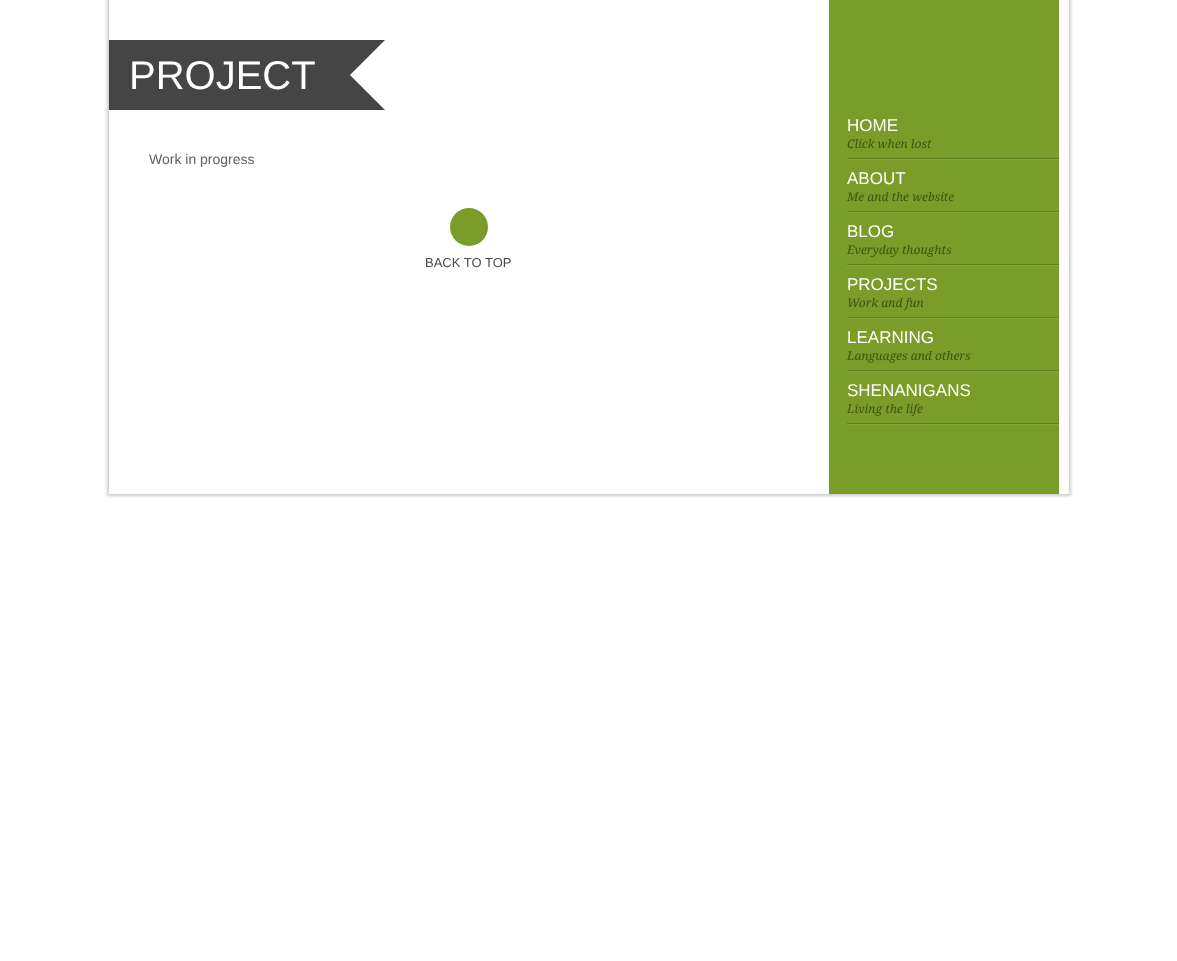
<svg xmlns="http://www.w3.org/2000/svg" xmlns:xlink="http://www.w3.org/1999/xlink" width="1177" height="961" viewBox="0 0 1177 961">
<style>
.cls-1{font:40px Liberation Sans;fill:#ffffff}
.cls-2{font:14px Liberation Sans;fill:#636262}
.cls-3{font:13px Liberation Sans;fill:#4a4a4a}
.cls-4{font:17px Liberation Sans;fill:#ffffff}
.cls-5{font:italic 12px Droid Serif;fill:#3f540e}
</style>
<defs>
<clipPath id="clip1"><path d="M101 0H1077V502H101ZM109 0H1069V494H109Z" clip-rule="evenodd"/></clipPath>
</defs>
<rect width="100%" height="100%" fill="#ffffff"/>
<g clip-path="url(#clip1)">
<rect fill="#000000" fill-opacity="0.2" filter="blur(1.5px)" x="107" y="-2" width="964" height="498"/>
</g>
<rect fill="#454545" x="109" y="40" width="206" height="70"/>
<path fill="#454545" d="M315 40H385L350 75Z"/>
<path fill="#454545" d="M385 110H315L350 75Z"/>
<rect fill="#454545" x="315" y="40" width="35" height="70"/>
<circle fill="#7a9d29" cx="469" cy="227" r="19"/>
<rect fill="#7a9d29" x="829" y="0" width="230" height="494"/>
<rect fill="#87a73e" x="847" y="159" width="212" height="1"/>
<rect fill="#607f18" x="847" y="158" width="212" height="1"/>
<rect fill="#87a73e" x="847" y="212" width="212" height="1"/>
<rect fill="#607f18" x="847" y="211" width="212" height="1"/>
<rect fill="#87a73e" x="847" y="265" width="212" height="1"/>
<rect fill="#607f18" x="847" y="264" width="212" height="1"/>
<rect fill="#87a73e" x="847" y="318" width="212" height="1"/>
<rect fill="#607f18" x="847" y="317" width="212" height="1"/>
<rect fill="#87a73e" x="847" y="371" width="212" height="1"/>
<rect fill="#607f18" x="847" y="370" width="212" height="1"/>
<rect fill="#87a73e" x="847" y="424" width="212" height="1"/>
<rect fill="#607f18" x="847" y="423" width="212" height="1"/>
<text class="cls-1" x="129" y="89">PROJECT</text>
<text class="cls-2" x="149" y="164">Work in progress</text>
<text class="cls-3" x="425" y="267">BACK TO TOP</text>
<text class="cls-4" x="847" y="131">HOME</text>
<text class="cls-5" x="847" y="148">Click when lost</text>
<text class="cls-4" x="847" y="184">ABOUT</text>
<text class="cls-5" x="847" y="201">Me and the website</text>
<text class="cls-4" x="847" y="237">BLOG</text>
<text class="cls-5" x="847" y="254">Everyday thoughts</text>
<text class="cls-4" x="847" y="290">PROJECTS</text>
<text class="cls-5" x="847" y="307">Work and fun</text>
<text class="cls-4" x="847" y="343">LEARNING</text>
<text class="cls-5" x="847" y="360">Languages and others</text>
<text class="cls-4" x="847" y="396">SHENANIGANS</text>
<text class="cls-5" x="847" y="413">Living the life</text>
</svg>
